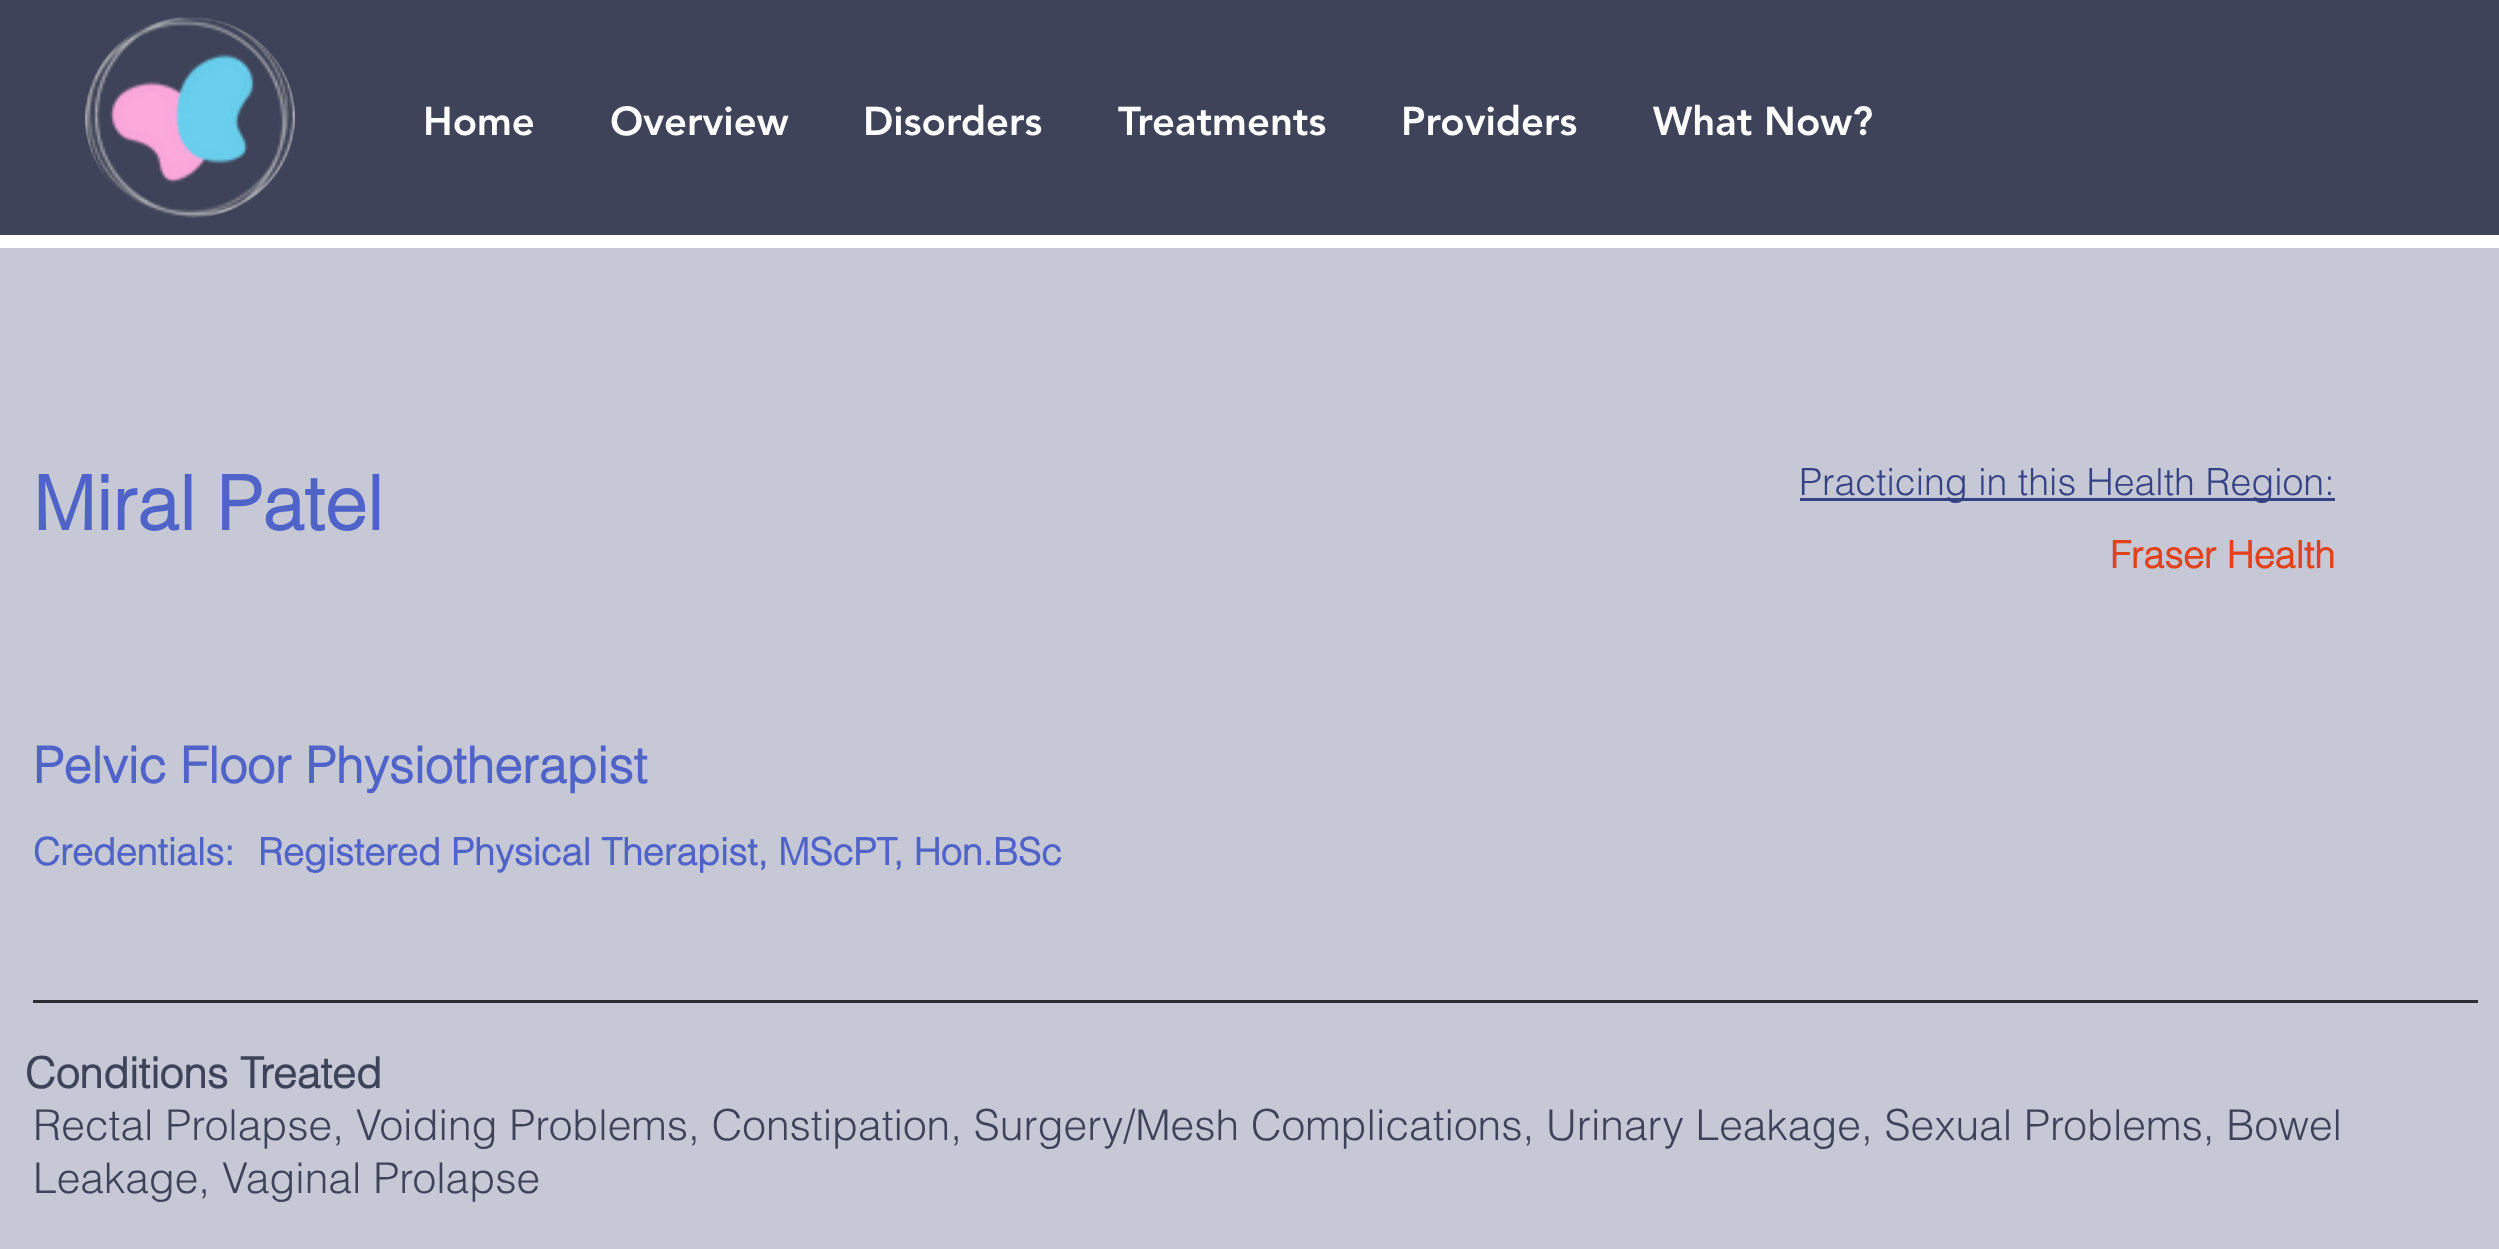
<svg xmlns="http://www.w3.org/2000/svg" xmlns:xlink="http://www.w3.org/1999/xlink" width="2499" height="1249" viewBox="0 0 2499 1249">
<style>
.cls-1{font:900 40px 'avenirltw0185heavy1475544';fill:#ffffff}
.cls-2{font:bold 75px helvetica;fill:#4f63c9}
.cls-3{font:300 37.5px helvetica;fill:#354286}
.cls-4{font:bold 37.5px helvetica;fill:#e3411b}
.cls-5{font:bold 50px helvetica;fill:#4f63c9}
.cls-6{font:bold 37.5px helvetica;fill:#4f63c9}
.cls-7{font:bold 42.5px helvetica;fill:#3f4359}
.cls-8{font:300 42.5px helvetica;fill:#3f4359}
</style>
<rect width="100%" height="100%" fill="#ffffff"/>
<rect fill="#3f4359" x="0" y="0" width="2499" height="235"/>
<image xlink:href="image0.png" x="85" y="17" width="210" height="201"/>
<rect fill="#c6c8d5" x="0" y="248" width="2499" height="1001"/>
<rect fill="#354286" x="1800" y="498" width="535" height="3"/>
<rect fill="#2c2d2e" x="33" y="1000" width="2445" height="3"/>
<text class="cls-1" x="423" y="135">Home</text>
<text class="cls-1" x="610" y="135">Overview</text>
<text class="cls-1" x="863" y="135">Disorders</text>
<text class="cls-1" x="1118" y="135">Treatments</text>
<text class="cls-1" x="1401" y="135">Providers</text>
<text class="cls-1" x="1653" y="135">What Now?</text>
<text class="cls-2" x="33" y="530">Miral Patel</text>
<text class="cls-3" x="1799" y="495">Practicing in this Health Region:</text>
<text class="cls-4" x="2110" y="568">Fraser Health</text>
<text class="cls-5" x="33" y="783">Pelvic Floor Physiotherapist</text>
<text class="cls-6" x="33" y="865">Credentials:</text>
<text class="cls-6" x="258" y="865">Registered Physical Therapist, MScPT, Hon.BSc</text>
<text class="cls-7" x="25" y="1088">Conditions Treated</text>
<text class="cls-8"><tspan x="33" y="1140">Rectal Prolapse, Voiding Problems, Constipation, Surgery/Mesh Complications, Urinary Leakage, Sexual Problems, Bowel</tspan><tspan x="33" y="1193">Leakage, Vaginal Prolapse</tspan></text>
</svg>
